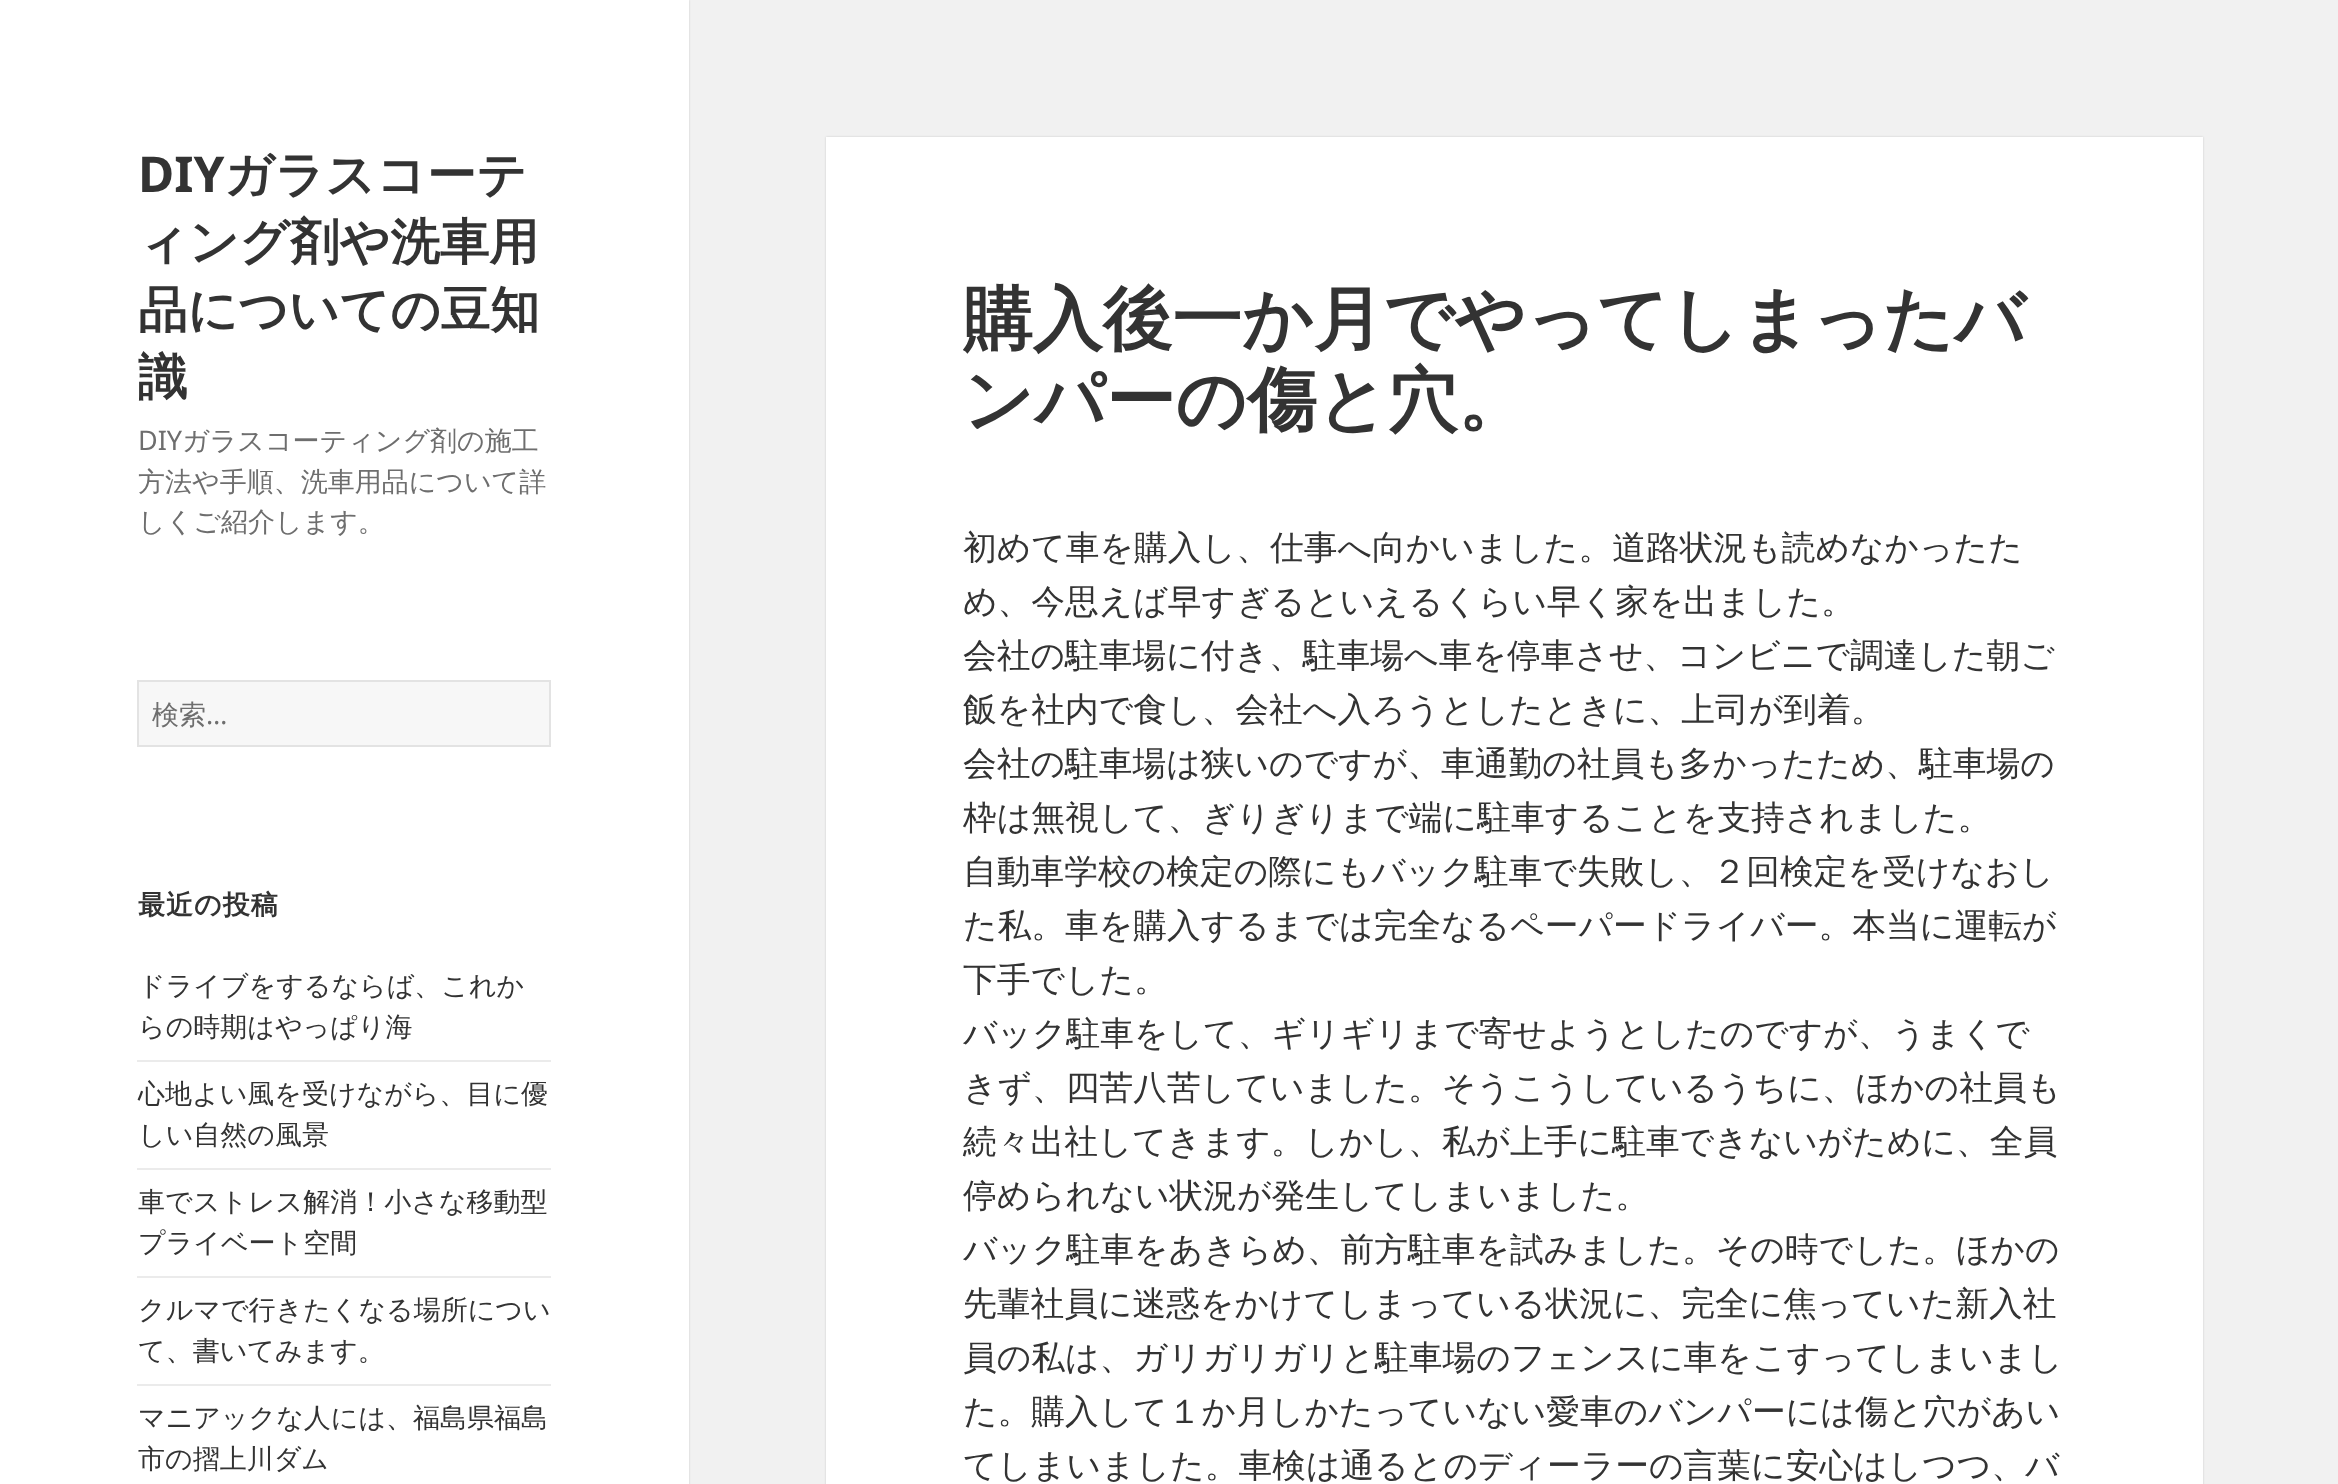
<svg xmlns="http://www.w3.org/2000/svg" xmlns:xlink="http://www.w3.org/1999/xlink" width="2338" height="1484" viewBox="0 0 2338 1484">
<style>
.cls-1{font:bold 49.5px Noto Sans;fill:#333333}
.cls-2{font:bold 49.5px WenQuanYi Zen Hei;fill:#333333}
.cls-3{font:27px Noto Sans;fill:#6e6e6e}
.cls-4{font:500 27px WenQuanYi Zen Hei;fill:#6e6e6e}
.cls-5{font:bold 27px WenQuanYi Zen Hei;letter-spacing:1px;fill:#333333}
.cls-6{font:500 27px WenQuanYi Zen Hei;fill:#333333}
.cls-7{font:bold 69.75px WenQuanYi Zen Hei;fill:#333333}
.cls-8{font:500 33.75px WenQuanYi Zen Hei;fill:#333333}
</style>
<rect width="100%" height="100%" fill="#f1f1f1"/>
<rect fill="#000000" fill-opacity="0.15" filter="blur(1px)" x="0" y="0" width="689" height="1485"/>
<rect fill="#ffffff" x="0" y="0" width="689" height="1484"/>
<rect fill="#f7f7f7" stroke="#e3e3e3" stroke-width="2" x="138" y="681" width="412" height="65"/>
<rect fill="#ebebeb" x="137" y="1060" width="414" height="2"/>
<rect fill="#ebebeb" x="137" y="1168" width="414" height="2"/>
<rect fill="#ebebeb" x="137" y="1276" width="414" height="2"/>
<rect fill="#ebebeb" x="137" y="1384" width="414" height="2"/>
<rect fill="#000000" fill-opacity="0.15" filter="blur(1px)" x="826" y="137" width="1377" height="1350"/>
<rect fill="#ffffff" x="826" y="137" width="1377" height="1347"/>
<text class="cls-1" x="138" y="192">DIY</text>
<text class="cls-2" x="224" y="192">ガラスコーテ</text>
<text class="cls-2"><tspan x="138" y="259">ィング剤や洗車用</tspan><tspan x="138" y="327">品についての豆知</tspan><tspan x="138" y="394">識</tspan></text>
<text class="cls-3" x="138" y="450">DIY</text>
<text class="cls-4" x="182" y="450">ガラスコーティング剤の施工</text>
<text class="cls-4"><tspan x="138" y="491">方法や手順、洗車用品について詳</tspan><tspan x="138" y="531">しくご紹介します。</tspan></text>
<text class="cls-4" x="152" y="724">検索</text>
<text class="cls-3" x="206" y="724">…</text>
<text class="cls-5" x="138" y="914">最近の投稿</text>
<text class="cls-6"><tspan x="138" y="995">ドライブをするならば、これか</tspan><tspan x="138" y="1036">らの時期はやっぱり海</tspan></text>
<text class="cls-6"><tspan x="138" y="1103">心地よい風を受けながら、目に優</tspan><tspan x="138" y="1144">しい自然の風景</tspan></text>
<text class="cls-6"><tspan x="138" y="1211">車でストレス解消！小さな移動型</tspan><tspan x="138" y="1252">プライベート空間</tspan></text>
<text class="cls-6"><tspan x="138" y="1319">クルマで行きたくなる場所につい</tspan><tspan x="138" y="1360">て、書いてみます。</tspan></text>
<text class="cls-6"><tspan x="138" y="1427">マニアックな人には、福島県福島</tspan><tspan x="138" y="1468">市の摺上川ダム</tspan></text>
<text class="cls-7"><tspan x="963" y="343">購入後一か月でやってしまったバ</tspan><tspan x="963" y="424">ンパーの傷と穴。</tspan></text>
<text class="cls-8"><tspan x="963" y="559">初めて車を購入し、仕事へ向かいました。道路状況も読めなかったた</tspan><tspan x="963" y="613">め、今思えば早すぎるといえるくらい早く家を出ました。</tspan><tspan x="963" y="667">会社の駐車場に付き、駐車場へ車を停車させ、コンビニで調達した朝ご</tspan><tspan x="963" y="721">飯を社内で食し、会社へ入ろうとしたときに、上司が到着。</tspan><tspan x="963" y="775">会社の駐車場は狭いのですが、車通勤の社員も多かったため、駐車場の</tspan><tspan x="963" y="829">枠は無視して、ぎりぎりまで端に駐車することを支持されました。</tspan><tspan x="963" y="883">自動車学校の検定の際にもバック駐車で失敗し、２回検定を受けなおし</tspan><tspan x="963" y="937">た私。車を購入するまでは完全なるペーパードライバー。本当に運転が</tspan><tspan x="963" y="991">下手でした。</tspan><tspan x="963" y="1045">バック駐車をして、ギリギリまで寄せようとしたのですが、うまくで</tspan><tspan x="963" y="1099">きず、四苦八苦していました。そうこうしているうちに、ほかの社員も</tspan><tspan x="963" y="1153">続々出社してきます。しかし、私が上手に駐車できないがために、全員</tspan><tspan x="963" y="1207">停められない状況が発生してしまいました。</tspan><tspan x="963" y="1261">バック駐車をあきらめ、前方駐車を試みました。その時でした。ほかの</tspan><tspan x="963" y="1315">先輩社員に迷惑をかけてしまっている状況に、完全に焦っていた新入社</tspan><tspan x="963" y="1369">員の私は、ガリガリガリと駐車場のフェンスに車をこすってしまいまし</tspan><tspan x="963" y="1423">た。購入して１か月しかたっていない愛車のバンパーには傷と穴があい</tspan><tspan x="963" y="1477">てしまいました。車検は通るとのディーラーの言葉に安心はしつつ、バ</tspan></text>
</svg>
